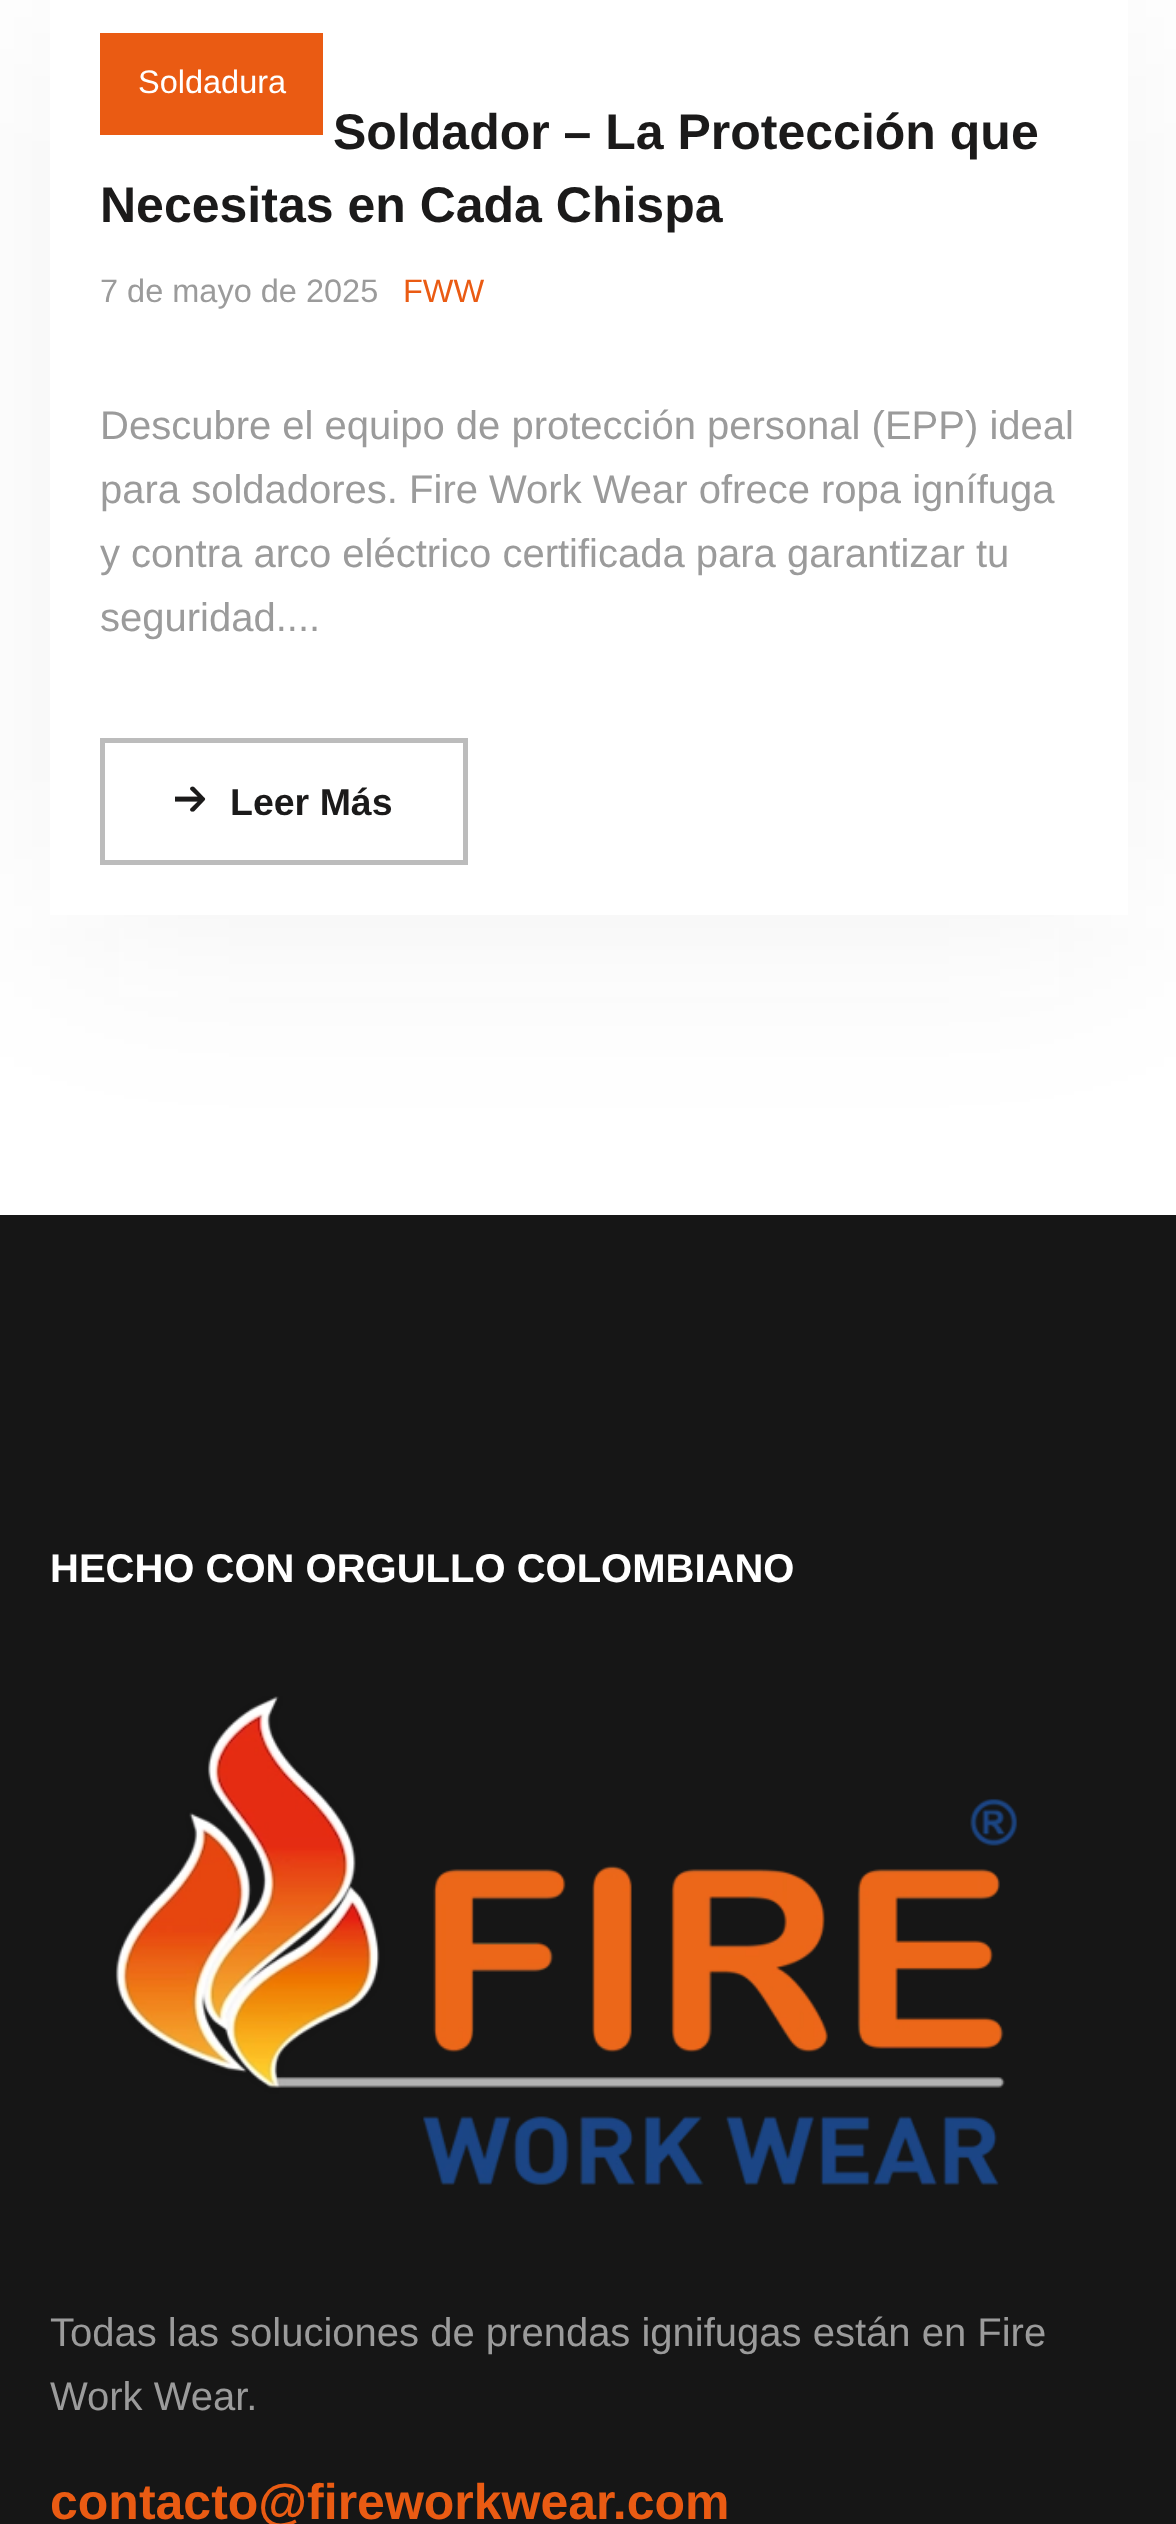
<svg xmlns="http://www.w3.org/2000/svg" xmlns:xlink="http://www.w3.org/1999/xlink" width="1176" height="2524" viewBox="0 0 1176 2524">
<style>
.cls-1{font:32.5px Liberation Sans;fill:#ffffff}
.cls-2{font:bold 50px Liberation Sans;fill:#1b1a1a}
.cls-3{font:32.5px Liberation Sans;fill:#9b9b9b}
.cls-4{font:32.5px Liberation Sans;fill:#ea5b13}
.cls-5{font:40px Liberation Sans;fill:#9b9b9b}
.cls-6{font:bold 37.5px Liberation Sans;fill:#1b1a1a}
.cls-7{font:bold 40px Liberation Sans;fill:#ffffff}
.cls-8{font:bold 50px Liberation Sans;fill:#ea5b13}
</style>
<rect width="100%" height="100%" fill="#ffffff"/>
<rect fill="#1b1a1a" fill-opacity="0.06" filter="blur(104px)" x="50" y="-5" width="1078" height="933"/>
<rect fill="#ffffff" x="50" y="0" width="1078" height="915"/>
<rect fill="#ea5b13" x="100" y="33" width="223" height="102"/>
<rect fill="none" stroke="#bcbcbc" stroke-width="5" x="102.5" y="740.5" width="363" height="122"/>
<image xlink:href="image0.png" x="175" y="786" width="31" height="26"/>
<rect fill="#161616" x="0" y="1215" width="1176" height="1309"/>
<image xlink:href="image1.png" x="115" y="1696" width="903" height="490"/>
<text class="cls-1" x="138" y="93">Soldadura</text>
<text class="cls-2" x="333" y="149">Soldador – La Protección que</text>
<text class="cls-2" x="100" y="222">Necesitas en Cada Chispa</text>
<text class="cls-3" x="100" y="302">7 de mayo de 2025</text>
<text class="cls-4" x="403" y="302">FWW</text>
<text class="cls-5"><tspan x="100" y="439">Descubre el equipo de protección personal (EPP) ideal</tspan><tspan x="100" y="503">para soldadores. Fire Work Wear ofrece ropa ignífuga</tspan><tspan x="100" y="567">y contra arco eléctrico certificada para garantizar tu</tspan><tspan x="100" y="631">seguridad....</tspan></text>
<text class="cls-6" x="230" y="815">Leer Más</text>
<text class="cls-7" x="50" y="1582">HECHO CON ORGULLO COLOMBIANO</text>
<text class="cls-5"><tspan x="50" y="2346">Todas las soluciones de prendas ignifugas están en Fire</tspan><tspan x="50" y="2410">Work Wear.</tspan></text>
<text class="cls-8" x="50" y="2519">contacto@fireworkwear.com</text>
</svg>
